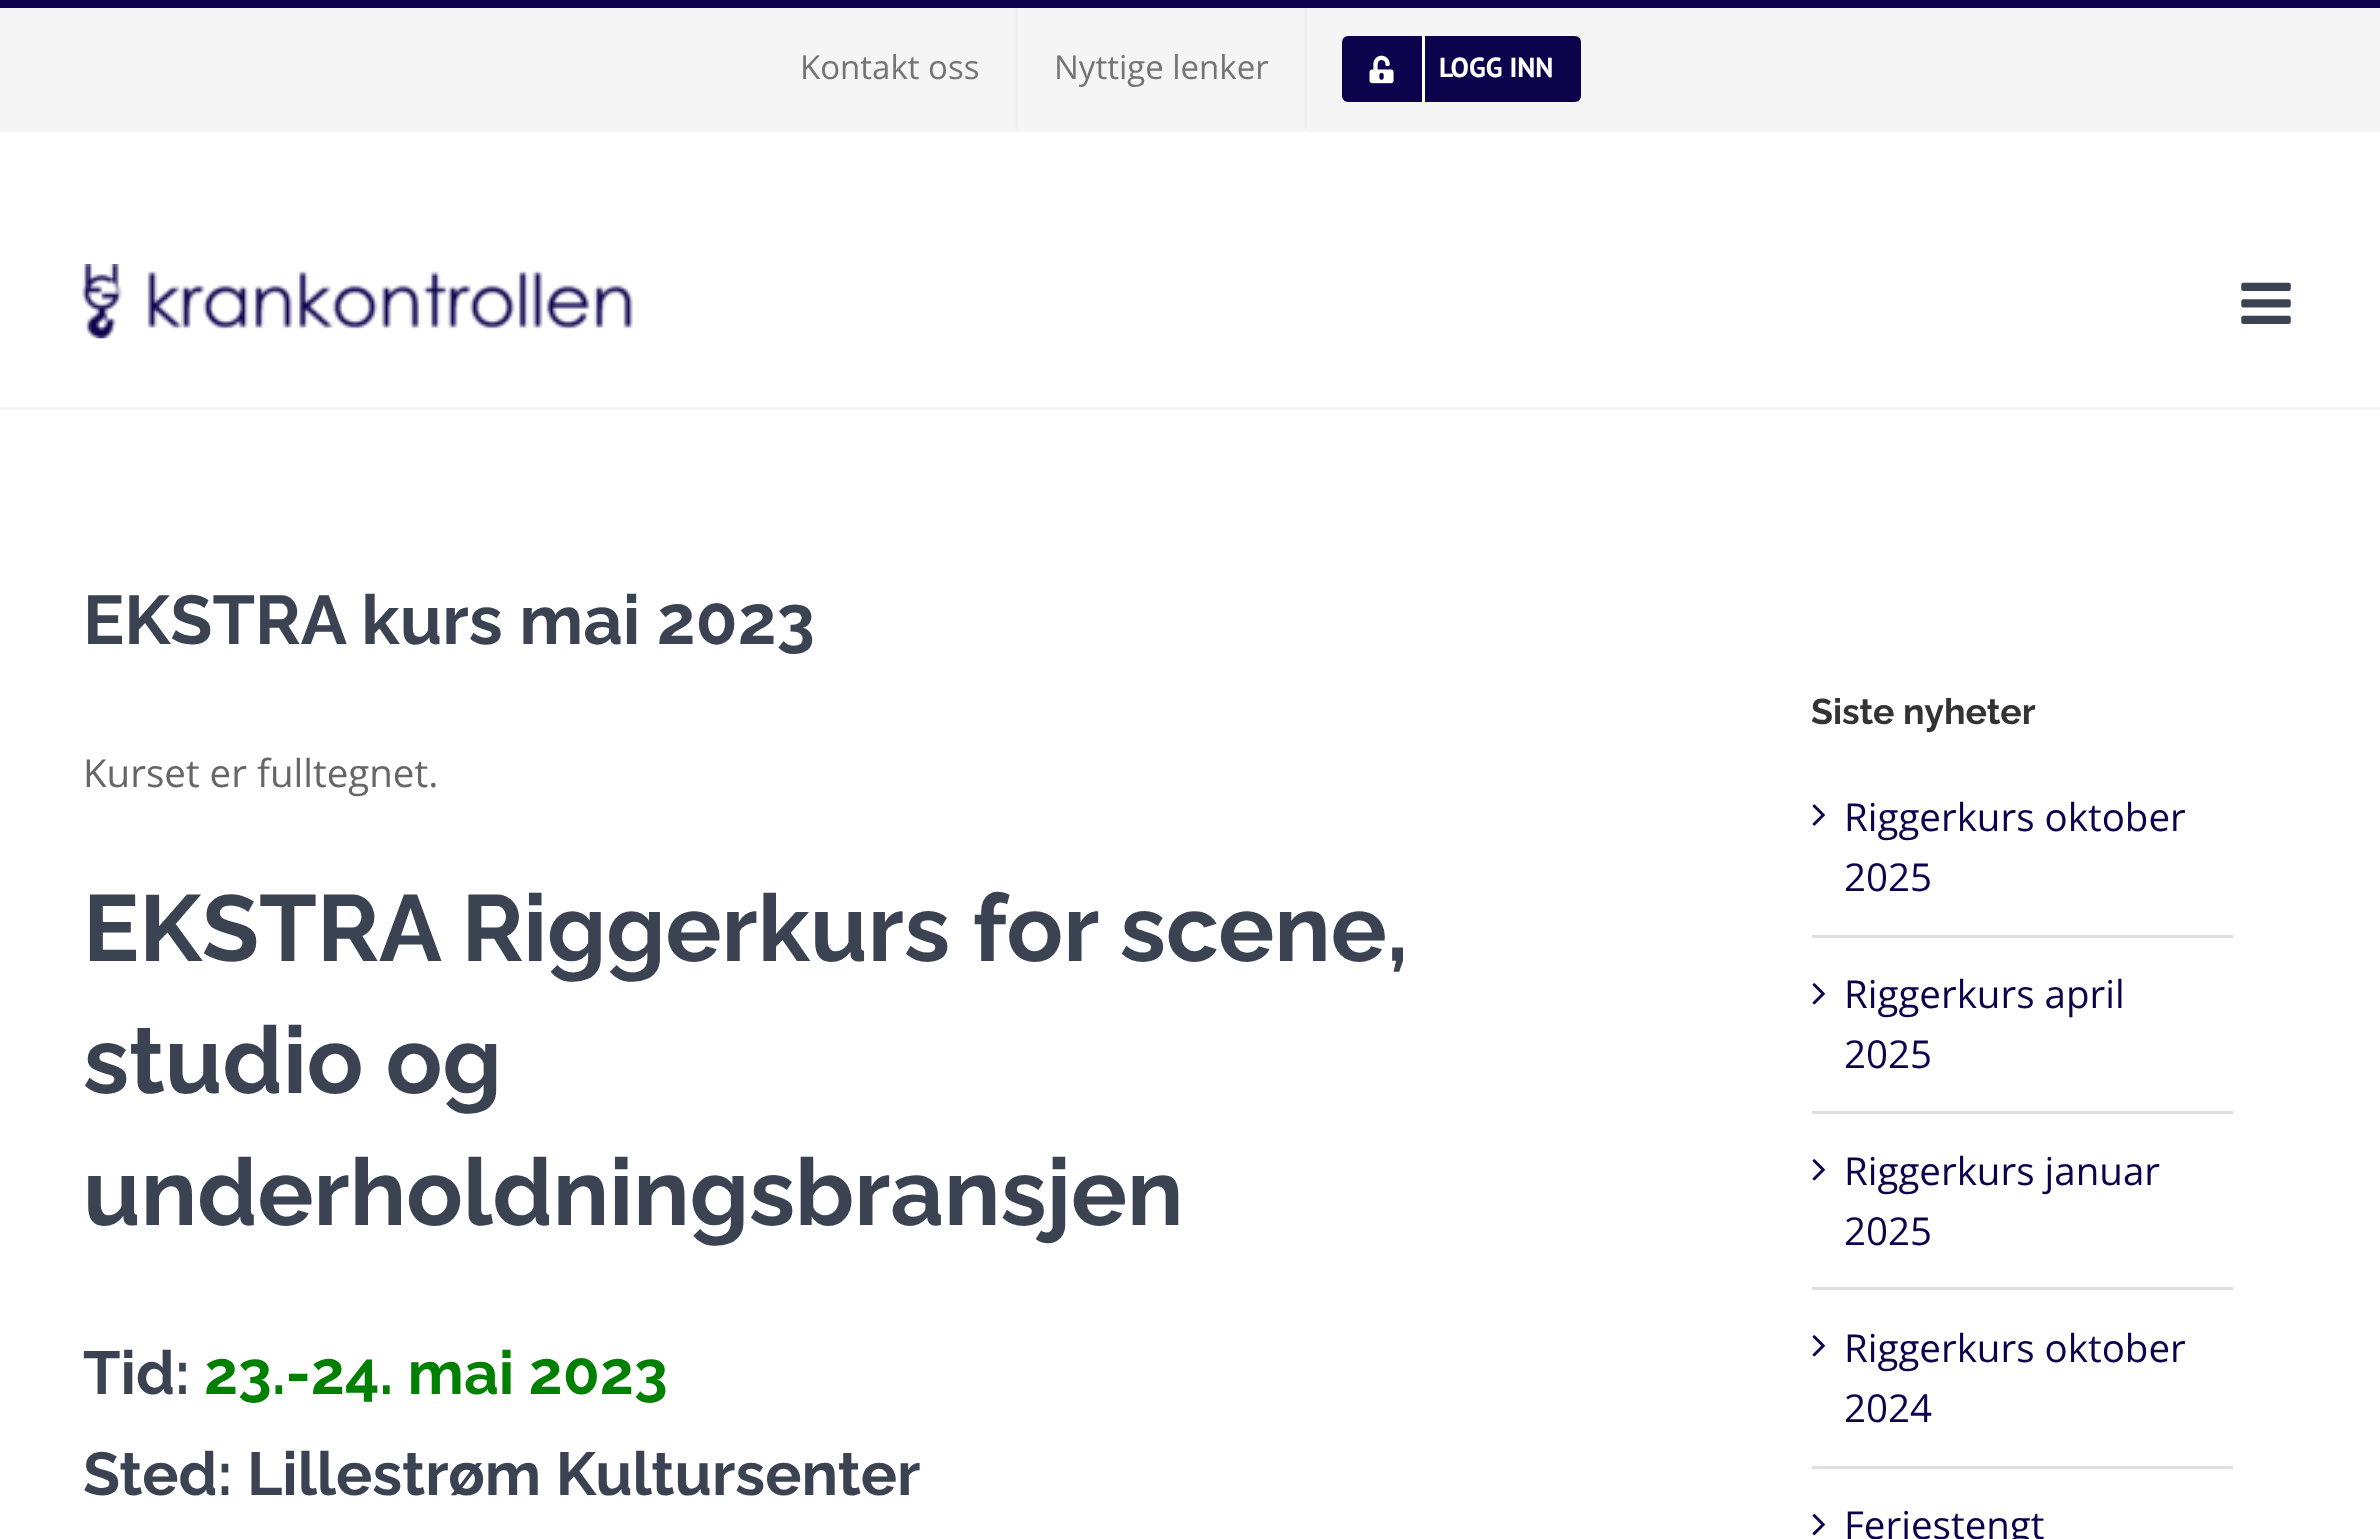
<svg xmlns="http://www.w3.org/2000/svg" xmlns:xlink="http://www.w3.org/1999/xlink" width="2380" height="1539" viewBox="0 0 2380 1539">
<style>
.cls-1{font:33px Open Sans;fill:#747474}
.cls-2{font:bold 27.5px PT Sans;fill:#ffffff}
.cls-3{font:100 68.75px Raleway;fill:#3b4251}
.cls-4{font:38.5px Open Sans;fill:#666666}
.cls-5{font:100 93.5px Raleway;fill:#3b4251}
.cls-6{font:100 60.5px Raleway;fill:#3b4251}
.cls-7{font:100 60.5px Raleway;fill:#008000}
.cls-8{font:100 35.75px Raleway;fill:#333333}
.cls-9{font:38.5px Open Sans;fill:#0d024c}
</style>
<rect width="100%" height="100%" fill="#ffffff"/>
<rect fill="#f5f5f5" x="0" y="8" width="2380" height="124"/>
<rect fill="#0d024c" x="0" y="0" width="2380" height="8"/>
<rect fill="#efefef" x="1015" y="8" width="3" height="121"/>
<rect fill="#efefef" x="1304" y="8" width="3" height="121"/>
<rect fill="#0d024c" x="1342" y="36" width="239" height="66" rx="6"/>
<rect fill="#ffffff" x="1422" y="36" width="3" height="66"/>
<image xlink:href="image0.png" x="1369" y="55" width="25" height="29"/>
<rect fill="#f5f5f5" x="0" y="407" width="2380" height="3"/>
<image xlink:href="image1.png" x="82" y="264" width="551" height="75"/>
<image xlink:href="image2.png" x="2241" y="282" width="50" height="42"/>
<rect fill="#e0dede" x="1812" y="935" width="421" height="3"/>
<image xlink:href="image3.png" x="1812" y="804" width="13" height="22"/>
<rect fill="#e0dede" x="1812" y="1111" width="421" height="3"/>
<image xlink:href="image4.png" x="1812" y="983" width="13" height="22"/>
<rect fill="#e0dede" x="1812" y="1287" width="421" height="3"/>
<image xlink:href="image4.png" x="1812" y="1159" width="13" height="22"/>
<rect fill="#e0dede" x="1812" y="1466" width="421" height="3"/>
<image xlink:href="image4.png" x="1812" y="1335" width="13" height="22"/>
<image xlink:href="image5.png" x="1812" y="1513" width="13" height="23"/>
<text class="cls-1" x="800" y="79">Kontakt oss</text>
<text class="cls-1" x="1054" y="79">Nyttige lenker</text>
<text class="cls-2" x="1439" y="77">LOGG INN</text>
<text class="cls-3" x="83" y="644">EKSTRA kurs mai 2023</text>
<text class="cls-4" x="83" y="787">Kurset er fulltegnet.</text>
<text class="cls-5"><tspan x="83" y="961">EKSTRA Riggerkurs for scene,</tspan><tspan x="83" y="1093">studio og</tspan><tspan x="83" y="1225">underholdningsbransjen</tspan></text>
<text class="cls-6" x="83" y="1394">Tid:</text>
<text class="cls-7" x="204" y="1394">23.-24. mai 2023</text>
<text class="cls-6" x="83" y="1495">Sted: Lillestrøm Kultursenter</text>
<text class="cls-8" x="1811" y="724">Siste nyheter</text>
<text class="cls-9"><tspan x="1844" y="831">Riggerkurs oktober</tspan><tspan x="1844" y="891">2025</tspan></text>
<text class="cls-9"><tspan x="1844" y="1008">Riggerkurs april</tspan><tspan x="1844" y="1068">2025</tspan></text>
<text class="cls-9"><tspan x="1844" y="1185">Riggerkurs januar</tspan><tspan x="1844" y="1245">2025</tspan></text>
<text class="cls-9"><tspan x="1844" y="1362">Riggerkurs oktober</tspan><tspan x="1844" y="1422">2024</tspan></text>
<text class="cls-9" x="1844" y="1539">Feriestengt</text>
</svg>
